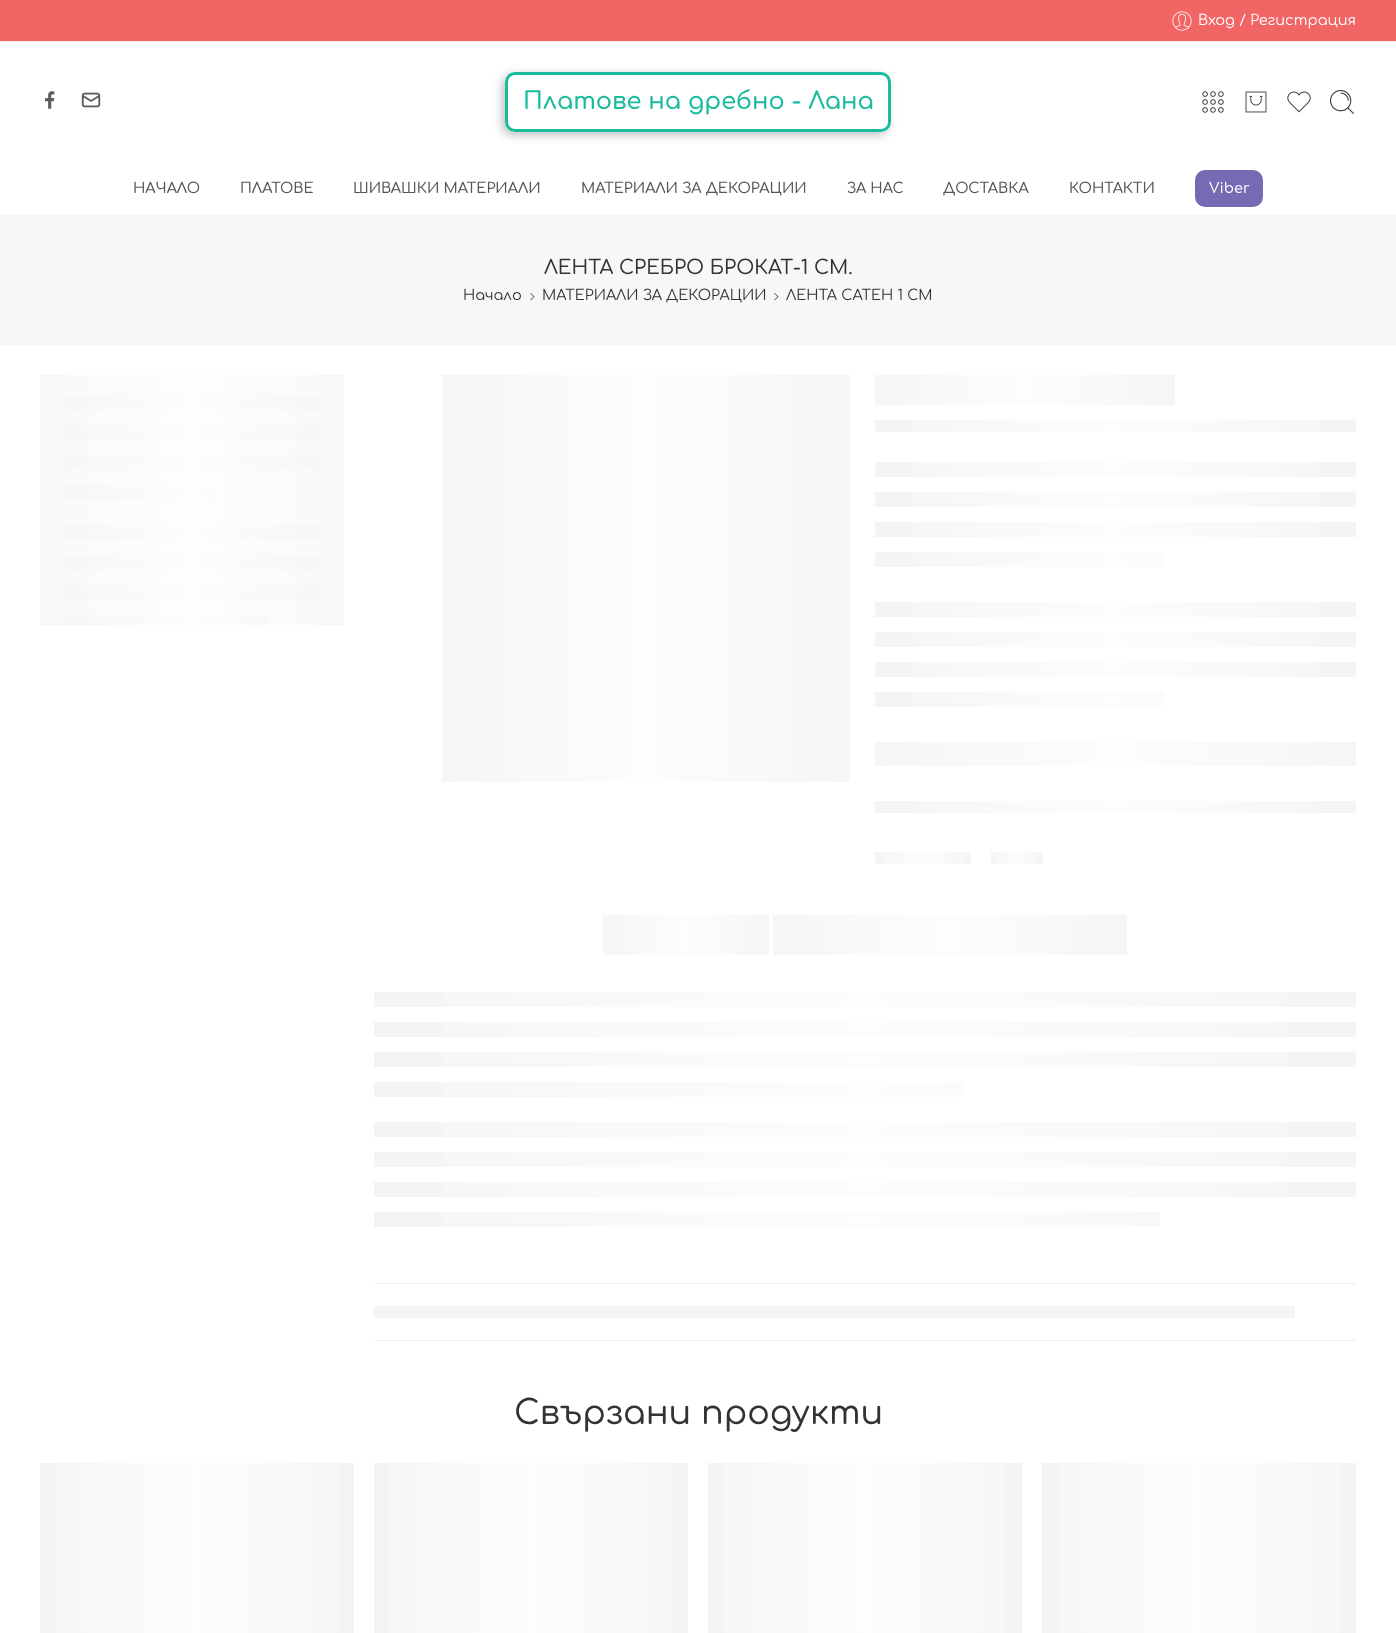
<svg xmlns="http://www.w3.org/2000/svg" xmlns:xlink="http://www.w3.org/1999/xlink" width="1396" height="1633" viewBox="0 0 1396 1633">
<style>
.cls-1{font:14.5px Comfortaa;fill:#ffffff}
.cls-2{font:600 24px Comfortaa;fill:#1abc9c}
.cls-3{font:500 14.5px Comfortaa;fill:#555555}
.cls-4{font:500 14.5px Comfortaa;fill:#ffffff}
.cls-5{font:500 19.6px Comfortaa;fill:#333333}
.cls-6{font:14.5px Comfortaa;fill:#333333}
.cls-7{font:500 33.4px Comfortaa;fill:#333333}
</style>
<defs>
<clipPath id="clip1"><path d="M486 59H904V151H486ZM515 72H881C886.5 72 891 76.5 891 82V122C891 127.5 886.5 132 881 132H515C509.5 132 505 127.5 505 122V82C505 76.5 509.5 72 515 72Z" clip-rule="evenodd"/></clipPath>
<linearGradient id="g1" gradientUnits="userSpaceOnUse" x1="-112" y1="500" x2="496" y2="500"><stop offset="0.2" stop-color="#ffffff" stop-opacity="0"/><stop offset="0.5" stop-color="#ffffff" stop-opacity="0.8"/><stop offset="0.8" stop-color="#ffffff" stop-opacity="0"/></linearGradient>
<linearGradient id="g2" gradientUnits="userSpaceOnUse" x1="237" y1="579" x2="1054" y2="579"><stop offset="0.2" stop-color="#f4f4f4"/><stop offset="0.5" stop-color="#fdfdfd"/><stop offset="0.8" stop-color="#f4f4f4"/></linearGradient>
<linearGradient id="g3" gradientUnits="userSpaceOnUse" x1="725" y1="390" x2="1325" y2="390"><stop offset="0.2" stop-color="#f4f4f4"/><stop offset="0.5" stop-color="#fdfdfd"/><stop offset="0.8" stop-color="#f4f4f4"/></linearGradient>
<linearGradient id="g4" gradientUnits="userSpaceOnUse" x1="635" y1="426" x2="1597" y2="426"><stop offset="0.2" stop-color="#ffffff" stop-opacity="0"/><stop offset="0.5" stop-color="#ffffff" stop-opacity="0.8"/><stop offset="0.8" stop-color="#ffffff" stop-opacity="0"/></linearGradient>
<linearGradient id="g5" gradientUnits="userSpaceOnUse" x1="635" y1="517" x2="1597" y2="517"><stop offset="0.2" stop-color="#ffffff" stop-opacity="0"/><stop offset="0.5" stop-color="#ffffff" stop-opacity="0.8"/><stop offset="0.8" stop-color="#ffffff" stop-opacity="0"/></linearGradient>
<linearGradient id="g6" gradientUnits="userSpaceOnUse" x1="635" y1="657" x2="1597" y2="657"><stop offset="0.2" stop-color="#ffffff" stop-opacity="0"/><stop offset="0.5" stop-color="#ffffff" stop-opacity="0.8"/><stop offset="0.8" stop-color="#ffffff" stop-opacity="0"/></linearGradient>
<linearGradient id="g7" gradientUnits="userSpaceOnUse" x1="635" y1="754" x2="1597" y2="754"><stop offset="0.2" stop-color="#f4f4f4"/><stop offset="0.5" stop-color="#fdfdfd"/><stop offset="0.8" stop-color="#f4f4f4"/></linearGradient>
<linearGradient id="g8" gradientUnits="userSpaceOnUse" x1="635" y1="807" x2="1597" y2="807"><stop offset="0.2" stop-color="#ffffff" stop-opacity="0"/><stop offset="0.5" stop-color="#ffffff" stop-opacity="0.8"/><stop offset="0.8" stop-color="#ffffff" stop-opacity="0"/></linearGradient>
<linearGradient id="g9" gradientUnits="userSpaceOnUse" x1="827" y1="858" x2="1020" y2="858"><stop offset="0.2" stop-color="#ffffff" stop-opacity="0"/><stop offset="0.5" stop-color="#ffffff" stop-opacity="0.8"/><stop offset="0.8" stop-color="#ffffff" stop-opacity="0"/></linearGradient>
<linearGradient id="g10" gradientUnits="userSpaceOnUse" x1="965" y1="858" x2="1069" y2="858"><stop offset="0.2" stop-color="#ffffff" stop-opacity="0"/><stop offset="0.5" stop-color="#ffffff" stop-opacity="0.8"/><stop offset="0.8" stop-color="#ffffff" stop-opacity="0"/></linearGradient>
<linearGradient id="g11" gradientUnits="userSpaceOnUse" x1="521" y1="935" x2="851" y2="935"><stop offset="0.2" stop-color="#f4f4f4"/><stop offset="0.5" stop-color="#fdfdfd"/><stop offset="0.8" stop-color="#f4f4f4"/></linearGradient>
<linearGradient id="g12" gradientUnits="userSpaceOnUse" x1="596" y1="935" x2="1303" y2="935"><stop offset="0.2" stop-color="#f4f4f4"/><stop offset="0.5" stop-color="#fdfdfd"/><stop offset="0.8" stop-color="#f4f4f4"/></linearGradient>
<linearGradient id="g13" gradientUnits="userSpaceOnUse" x1="-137" y1="1117" x2="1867" y2="1117"><stop offset="0.2" stop-color="#ffffff" stop-opacity="0"/><stop offset="0.5" stop-color="#ffffff" stop-opacity="0.8"/><stop offset="0.8" stop-color="#ffffff" stop-opacity="0"/></linearGradient>
<linearGradient id="g14" gradientUnits="userSpaceOnUse" x1="-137" y1="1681" x2="531" y2="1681"><stop offset="0.2" stop-color="#ffffff" stop-opacity="0"/><stop offset="0.5" stop-color="#ffffff" stop-opacity="0.8"/><stop offset="0.8" stop-color="#ffffff" stop-opacity="0"/></linearGradient>
<linearGradient id="g15" gradientUnits="userSpaceOnUse" x1="197" y1="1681" x2="865" y2="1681"><stop offset="0.2" stop-color="#ffffff" stop-opacity="0"/><stop offset="0.5" stop-color="#ffffff" stop-opacity="0.8"/><stop offset="0.8" stop-color="#ffffff" stop-opacity="0"/></linearGradient>
<linearGradient id="g16" gradientUnits="userSpaceOnUse" x1="531" y1="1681" x2="1199" y2="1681"><stop offset="0.2" stop-color="#ffffff" stop-opacity="0"/><stop offset="0.5" stop-color="#ffffff" stop-opacity="0.8"/><stop offset="0.8" stop-color="#ffffff" stop-opacity="0"/></linearGradient>
<linearGradient id="g17" gradientUnits="userSpaceOnUse" x1="865" y1="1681" x2="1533" y2="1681"><stop offset="0.2" stop-color="#ffffff" stop-opacity="0"/><stop offset="0.5" stop-color="#ffffff" stop-opacity="0.8"/><stop offset="0.8" stop-color="#ffffff" stop-opacity="0"/></linearGradient>
</defs>
<rect width="100%" height="100%" fill="#ffffff"/>
<rect fill="#f16564" x="0" y="0" width="1396" height="41"/>
<rect fill="#ececec" x="0" y="41" width="1396" height="1"/>
<image xlink:href="image0.png" x="1172" y="11" width="20" height="20"/>
<image xlink:href="image1.png" x="45" y="91" width="10" height="18"/>
<image xlink:href="image2.png" x="81" y="92" width="20" height="16"/>
<g clip-path="url(#clip1)">
<rect fill="#000000" fill-opacity="0.25" filter="blur(5px)" x="502" y="75" width="386" height="60" rx="10"/>
</g>
<rect fill="none" stroke="#1abc9c" stroke-width="3" x="506.5" y="73.5" width="383" height="57" rx="8.5"/>
<image xlink:href="image3.png" x="1202" y="91" width="22" height="22"/>
<image xlink:href="image4.png" x="1245" y="91" width="22" height="22"/>
<image xlink:href="image5.png" x="1287" y="91" width="24" height="22"/>
<image xlink:href="image6.png" x="1330" y="90" width="24" height="24"/>
<rect fill="#746bb4" stroke="#746bb4" stroke-width="2" x="1196" y="171" width="66" height="35" rx="9"/>
<rect fill="#f7f7f7" x="0" y="215" width="1396" height="130"/>
<image xlink:href="image7.png" x="530" y="293" width="5" height="8"/>
<image xlink:href="image7.png" x="774" y="293" width="5" height="8"/>
<rect fill="#f8f8f8" x="40" y="375" width="304" height="250"/>
<rect fill="#f4f4f4" x="65" y="615" width="203" height="10"/>
<rect fill="#f4f4f4" x="65" y="585" width="254" height="15"/>
<rect fill="#f4f4f4" x="65" y="555" width="254" height="15"/>
<rect fill="#f4f4f4" x="65" y="525" width="254" height="15"/>
<rect fill="#f4f4f4" x="65" y="485" width="152" height="15"/>
<rect fill="#f4f4f4" x="65" y="455" width="254" height="15"/>
<rect fill="#f4f4f4" x="65" y="425" width="254" height="15"/>
<rect fill="#f4f4f4" x="65" y="395" width="254" height="15"/>
<rect fill="url(#g1)" x="65" y="375" width="254" height="250"/>
<rect fill="url(#g2)" x="442" y="375" width="408" height="407"/>
<rect fill="url(#g3)" x="875" y="375" width="300" height="30"/>
<rect fill="#f4f4f4" x="875" y="420" width="481" height="12"/>
<rect fill="url(#g4)" x="913" y="420" width="406" height="12"/>
<rect fill="#f4f4f4" x="875" y="552" width="289" height="15"/>
<rect fill="#f4f4f4" x="875" y="522" width="481" height="15"/>
<rect fill="#f4f4f4" x="875" y="492" width="481" height="15"/>
<rect fill="#f4f4f4" x="875" y="462" width="481" height="15"/>
<rect fill="url(#g5)" x="913" y="462" width="406" height="105"/>
<rect fill="#f4f4f4" x="875" y="692" width="289" height="15"/>
<rect fill="#f4f4f4" x="875" y="662" width="481" height="15"/>
<rect fill="#f4f4f4" x="875" y="632" width="481" height="15"/>
<rect fill="#f4f4f4" x="875" y="602" width="481" height="15"/>
<rect fill="url(#g6)" x="913" y="602" width="406" height="105"/>
<rect fill="url(#g7)" x="875" y="742" width="481" height="24"/>
<rect fill="#f4f4f4" x="875" y="801" width="481" height="12"/>
<rect fill="url(#g8)" x="913" y="801" width="406" height="12"/>
<rect fill="#f4f4f4" x="875" y="852" width="96" height="12"/>
<rect fill="url(#g9)" x="883" y="852" width="81" height="12"/>
<rect fill="#f4f4f4" x="991" y="852" width="52" height="12"/>
<rect fill="url(#g10)" x="995" y="852" width="44" height="12"/>
<rect fill="url(#g11)" x="603" y="915" width="166" height="40"/>
<rect fill="url(#g12)" x="773" y="915" width="354" height="40"/>
<rect fill="#f4f4f4" x="374" y="1212" width="786" height="15"/>
<rect fill="#f4f4f4" x="374" y="1182" width="982" height="15"/>
<rect fill="#f4f4f4" x="374" y="1152" width="982" height="15"/>
<rect fill="#f4f4f4" x="374" y="1122" width="982" height="15"/>
<rect fill="#f4f4f4" x="374" y="1082" width="589" height="15"/>
<rect fill="#f4f4f4" x="374" y="1052" width="982" height="15"/>
<rect fill="#f4f4f4" x="374" y="1022" width="982" height="15"/>
<rect fill="#f4f4f4" x="374" y="992" width="982" height="15"/>
<rect fill="url(#g13)" x="442" y="992" width="846" height="235"/>
<rect fill="#efefef" x="374" y="1283" width="982" height="1"/>
<rect fill="#efefef" x="374" y="1340" width="982" height="1"/>
<rect fill="#f4f4f4" x="374" y="1306" width="921" height="12"/>
<rect fill="#f4f4f4" x="40" y="1463" width="314" height="170"/>
<rect fill="url(#g14)" x="56" y="1463" width="282" height="170"/>
<rect fill="#f4f4f4" x="374" y="1463" width="314" height="170"/>
<rect fill="url(#g15)" x="390" y="1463" width="282" height="170"/>
<rect fill="#f4f4f4" x="708" y="1463" width="314" height="170"/>
<rect fill="url(#g16)" x="724" y="1463" width="282" height="170"/>
<rect fill="#f4f4f4" x="1042" y="1463" width="314" height="170"/>
<rect fill="url(#g17)" x="1058" y="1463" width="282" height="170"/>
<text class="cls-1" x="1198" y="25">Вход / Регистрация</text>
<text class="cls-2" x="523" y="109">Платове на дребно - Лана</text>
<text class="cls-3" x="133" y="193">НАЧАЛО</text>
<text class="cls-3" x="240" y="193">ПЛАТОВЕ</text>
<text class="cls-3" x="353" y="193">ШИВАШКИ МАТЕРИАЛИ</text>
<text class="cls-3" x="581" y="193">МАТЕРИАЛИ ЗА ДЕКОРАЦИИ</text>
<text class="cls-3" x="847" y="193">ЗА НАС</text>
<text class="cls-3" x="943" y="193">ДОСТАВКА</text>
<text class="cls-3" x="1069" y="193">КОНТАКТИ</text>
<text class="cls-4" x="1209" y="193">Viber</text>
<text class="cls-5" x="544" y="274">ЛЕНТА СРЕБРО БРОКАТ-1 СМ.</text>
<text class="cls-6" x="463" y="300">Начало</text>
<text class="cls-6" x="542" y="300">МАТЕРИАЛИ ЗА ДЕКОРАЦИИ</text>
<text class="cls-6" x="786" y="300">ЛЕНТА САТЕН 1 СМ</text>
<text class="cls-7" x="514" y="1424">Свързани продукти</text>
</svg>
